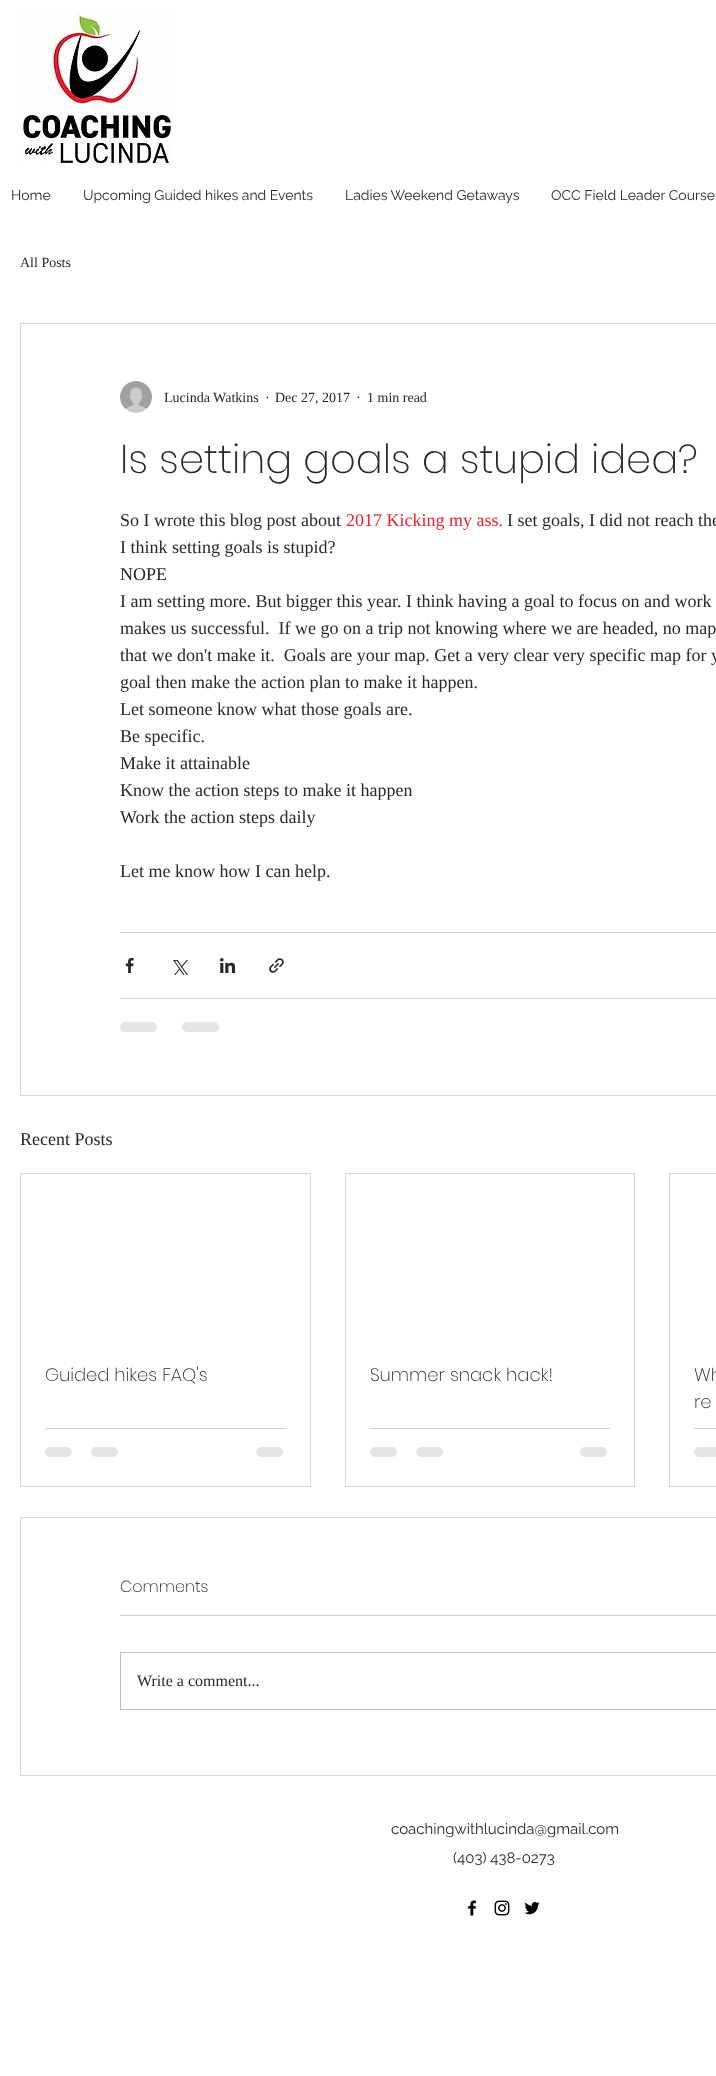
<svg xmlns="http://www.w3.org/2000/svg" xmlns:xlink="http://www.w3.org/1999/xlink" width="716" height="2076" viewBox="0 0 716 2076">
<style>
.cls-1{font:14px Raleway;fill:#292627}
.cls-2{font:14px Liberation Serif;fill:#292627}
.cls-3{font:200 40px Poppins;fill:#292627}
.cls-4{font:18px Liberation Serif;fill:#292627}
.cls-5{font:18px Liberation Serif;fill:#ea2128}
.cls-6{font:200 18px Poppins;fill:#292627}
.cls-7{font:200 16px Poppins;fill:#292627}
.cls-8{font:16px Liberation Serif;fill:#292627}
.cls-9{font:15px Raleway;fill:#292627}
</style>
<rect width="100%" height="100%" fill="#ffffff"/>
<image xlink:href="image0.png" x="21" y="9" width="152" height="156"/>
<rect fill="none" stroke="#d8d5d6" x="20.5" y="323.5" width="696" height="772"/>
<image xlink:href="image1.png" x="120" y="381" width="32" height="32"/>
<rect fill="#d4d4d4" x="120" y="932" width="596" height="1"/>
<image xlink:href="image2.png" x="125" y="958" width="9" height="15"/>
<image xlink:href="image3.png" x="173" y="960" width="15" height="15"/>
<image xlink:href="image4.png" x="220" y="958" width="15" height="15"/>
<image xlink:href="image5.png" x="269" y="958" width="15" height="15"/>
<rect fill="#d4d4d4" x="120" y="998" width="596" height="1"/>
<rect fill="#e5e5e5" x="120" y="1022" width="37" height="10" rx="5"/>
<rect fill="#e5e5e5" x="182" y="1022" width="37" height="10" rx="5"/>
<rect fill="none" stroke="#d8d5d6" x="20.5" y="1173.5" width="290" height="313"/>
<rect fill="#d4d4d4" x="45" y="1428" width="241" height="1"/>
<rect fill="#e5e5e5" x="45" y="1447" width="27" height="10" rx="5"/>
<rect fill="#e5e5e5" x="91" y="1447" width="27" height="10" rx="5"/>
<rect fill="#e5e5e5" x="256" y="1447" width="27" height="10" rx="5"/>
<rect fill="none" stroke="#d8d5d6" x="345.5" y="1173.5" width="289" height="313"/>
<rect fill="#d4d4d4" x="370" y="1428" width="240" height="1"/>
<rect fill="#e5e5e5" x="370" y="1447" width="27" height="10" rx="5"/>
<rect fill="#e5e5e5" x="416" y="1447" width="27" height="10" rx="5"/>
<rect fill="#e5e5e5" x="580" y="1447" width="27" height="10" rx="5"/>
<rect fill="none" stroke="#d8d5d6" x="669.5" y="1173.5" width="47" height="313"/>
<rect fill="#d4d4d4" x="694" y="1428" width="22" height="1"/>
<rect fill="#e5e5e5" x="694" y="1447" width="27" height="10" rx="5"/>
<rect fill="none" stroke="#d8d5d6" x="20.5" y="1517.5" width="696" height="258"/>
<rect fill="#d4d4d4" x="120" y="1615" width="596" height="1"/>
<rect fill="none" stroke="#bfbebe" x="120.5" y="1652.5" width="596" height="57"/>
<image xlink:href="image6.png" x="468" y="1900" width="9" height="16"/>
<image xlink:href="image7.png" x="494" y="1900" width="16" height="16"/>
<image xlink:href="image8.png" x="524" y="1901" width="16" height="14"/>
<text class="cls-1" x="11" y="200">Home</text>
<text class="cls-1" x="83" y="200">Upcoming Guided hikes and Events</text>
<text class="cls-1" x="345" y="200">Ladies Weekend Getaways</text>
<text class="cls-1" x="551" y="200">OCC Field Leader Course</text>
<text class="cls-2" x="20" y="267">All Posts</text>
<text class="cls-2" x="164" y="402">Lucinda Watkins</text>
<text class="cls-2" x="265" y="402">·</text>
<text class="cls-2" x="275" y="402">Dec 27, 2017</text>
<text class="cls-2" x="356" y="402">·</text>
<text class="cls-2" x="367" y="402">1 min read</text>
<text class="cls-3" x="120" y="473">Is setting goals a stupid idea?</text>
<text class="cls-4" x="120" y="526">So I wrote this blog post about</text>
<text class="cls-5" x="346" y="526">2017 Kicking my ass.</text>
<text class="cls-4" x="507" y="526">I set goals, I did not reach the</text>
<text class="cls-4" xml:space="preserve"><tspan x="120" y="553">I think setting goals is stupid?</tspan><tspan x="120" y="580">NOPE</tspan><tspan x="120" y="607">I am setting more. But bigger this year. I think having a goal to focus on and work</tspan><tspan x="120" y="634">makes us successful.  If we go on a trip not knowing where we are headed, no map</tspan><tspan x="120" y="661">that we don't make it.  Goals are your map. Get a very clear very specific map for y</tspan><tspan x="120" y="688">goal then make the action plan to make it happen.</tspan><tspan x="120" y="715">Let someone know what those goals are.</tspan><tspan x="120" y="742">Be specific.</tspan><tspan x="120" y="769">Make it attainable</tspan><tspan x="120" y="796">Know the action steps to make it happen</tspan><tspan x="120" y="823">Work the action steps daily</tspan></text>
<text class="cls-4" x="120" y="877">Let me know how I can help.</text>
<text class="cls-4" x="20" y="1145">Recent Posts</text>
<text class="cls-6" x="45" y="1381">Guided hikes FAQ's</text>
<text class="cls-6" x="370" y="1381">Summer snack hack!</text>
<text class="cls-6"><tspan x="694" y="1381">Wh</tspan><tspan x="694" y="1408">re</tspan></text>
<text class="cls-7" x="120" y="1592">Comments</text>
<text class="cls-8" x="137" y="1686">Write a comment...</text>
<text class="cls-9" x="391" y="1834">coachingwithlucinda@gmail.com</text>
<text class="cls-9" x="453" y="1863">(403) 438-0273</text>
</svg>
